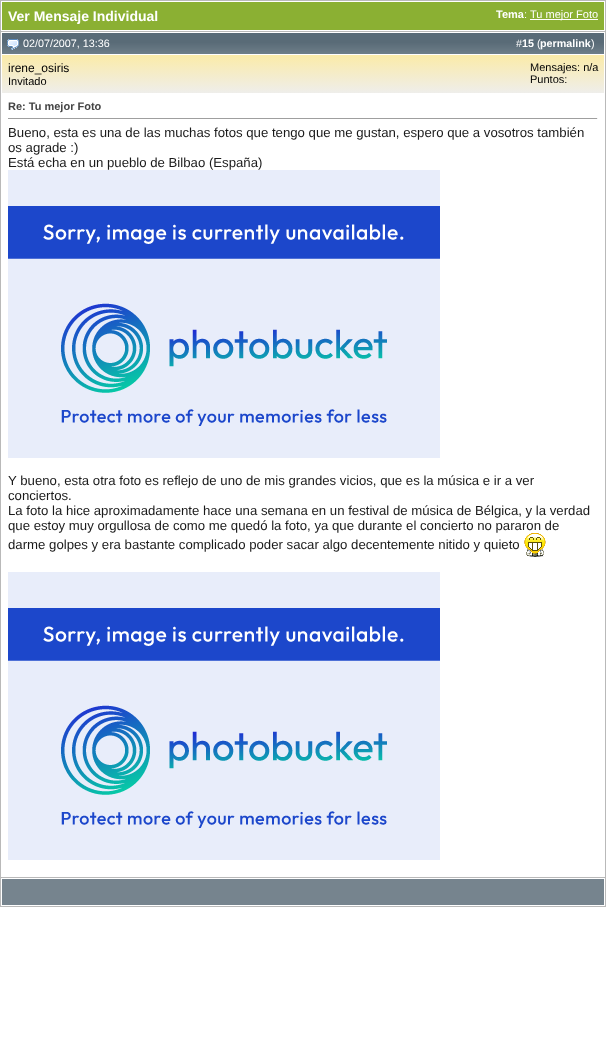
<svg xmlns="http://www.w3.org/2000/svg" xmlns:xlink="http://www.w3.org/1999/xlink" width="606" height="1050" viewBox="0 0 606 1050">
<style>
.cls-1{font:bold 14px Liberation Sans;fill:#ffffff}
.cls-2{font:bold 11px Liberation Sans;fill:#ffffff}
.cls-3{font:11px Liberation Sans;fill:#ffffff}
.cls-4{font:10.75px Liberation Sans;fill:#ffffff}
.cls-5{font:bold 10.75px Liberation Sans;fill:#ffffff}
.cls-6{font:12px Liberation Sans;fill:#000000}
.cls-7{font:11px Liberation Sans;fill:#000000}
.cls-8{font:bold 11px Liberation Sans;fill:#444444}
.cls-9{font:13.2px Liberation Sans;fill:#1a1a1a}
</style>
<defs>
<linearGradient id="g1" gradientUnits="userSpaceOnUse" x1="2" y1="55" x2="2" y2="95"><stop offset="0" stop-color="#fbeba8"/><stop offset="1" stop-color="#eeeeee"/></linearGradient>
</defs>
<rect width="100%" height="100%" fill="#ffffff"/>
<rect fill="#b9b9b9" x="0" y="0" width="606" height="1"/>
<rect fill="#b9b9b9" x="605" y="0" width="1" height="31"/>
<rect fill="#b9b9b9" x="0" y="0" width="1" height="31"/>
<rect fill="#8bb033" x="2" y="2" width="602" height="28"/>
<rect fill="#ffffff" x="530" y="19" width="68" height="1"/>
<rect fill="none" stroke="#b9b9b9" x="0.5" y="31.5" width="605" height="846"/>
<image xlink:href="image0.png" x="2" y="33" width="602" height="21"/>
<image xlink:href="image1.png" x="7" y="39" width="12" height="11"/>
<rect fill="url(#g1)" x="2" y="55" width="602" height="38"/>
<rect fill="#9f9f9f" x="8" y="118" width="590" height="1"/>
<rect fill="#eeeeee" x="597" y="118" width="1" height="1"/>
<image xlink:href="image2.png" x="8" y="170" width="432" height="288"/>
<image xlink:href="image3.png" x="524" y="533" width="22" height="24"/>
<image xlink:href="image2.png" x="8" y="572" width="432" height="288"/>
<rect fill="#b9b9b9" x="605" y="878" width="1" height="29"/>
<rect fill="#b9b9b9" x="0" y="906" width="606" height="1"/>
<rect fill="#b9b9b9" x="0" y="878" width="1" height="29"/>
<rect fill="#76848e" x="2" y="879" width="602" height="26"/>
<text class="cls-1" x="8" y="21">Ver Mensaje Individual</text>
<text class="cls-2" x="496" y="18">Tema</text>
<text class="cls-3" x="524" y="18">:</text>
<text class="cls-3" x="530" y="18">Tu mejor Foto</text>
<text class="cls-4" x="23" y="47">02/07/2007, 13:36</text>
<text class="cls-4" x="516" y="47">#</text>
<text class="cls-5" x="522" y="47">15</text>
<text class="cls-4" x="537" y="47">(</text>
<text class="cls-5" x="540" y="47">permalink</text>
<text class="cls-4" x="591" y="47">)</text>
<text class="cls-6" x="8" y="72">irene_osiris</text>
<text class="cls-7" x="8" y="85">Invitado</text>
<text class="cls-7"><tspan x="530" y="71">Mensajes: n/a</tspan><tspan x="530" y="83">Puntos:</tspan></text>
<text class="cls-8" x="8" y="110">Re: Tu mejor Foto</text>
<text class="cls-9"><tspan x="8" y="137">Bueno, esta es una de las muchas fotos que tengo que me gustan, espero que a vosotros también</tspan><tspan x="8" y="152">os agrade :)</tspan><tspan x="8" y="167">Está echa en un pueblo de Bilbao (España)</tspan></text>
<text class="cls-9"><tspan x="8" y="485">Y bueno, esta otra foto es reflejo de uno de mis grandes vicios, que es la música e ir a ver</tspan><tspan x="8" y="500">conciertos.</tspan><tspan x="8" y="515">La foto la hice aproximadamente hace una semana en un festival de música de Bélgica, y la verdad</tspan><tspan x="8" y="530">que estoy muy orgullosa de como me quedó la foto, ya que durante el concierto no pararon de</tspan><tspan x="8" y="549">darme golpes y era bastante complicado poder sacar algo decentemente nitido y quieto</tspan></text>
</svg>
